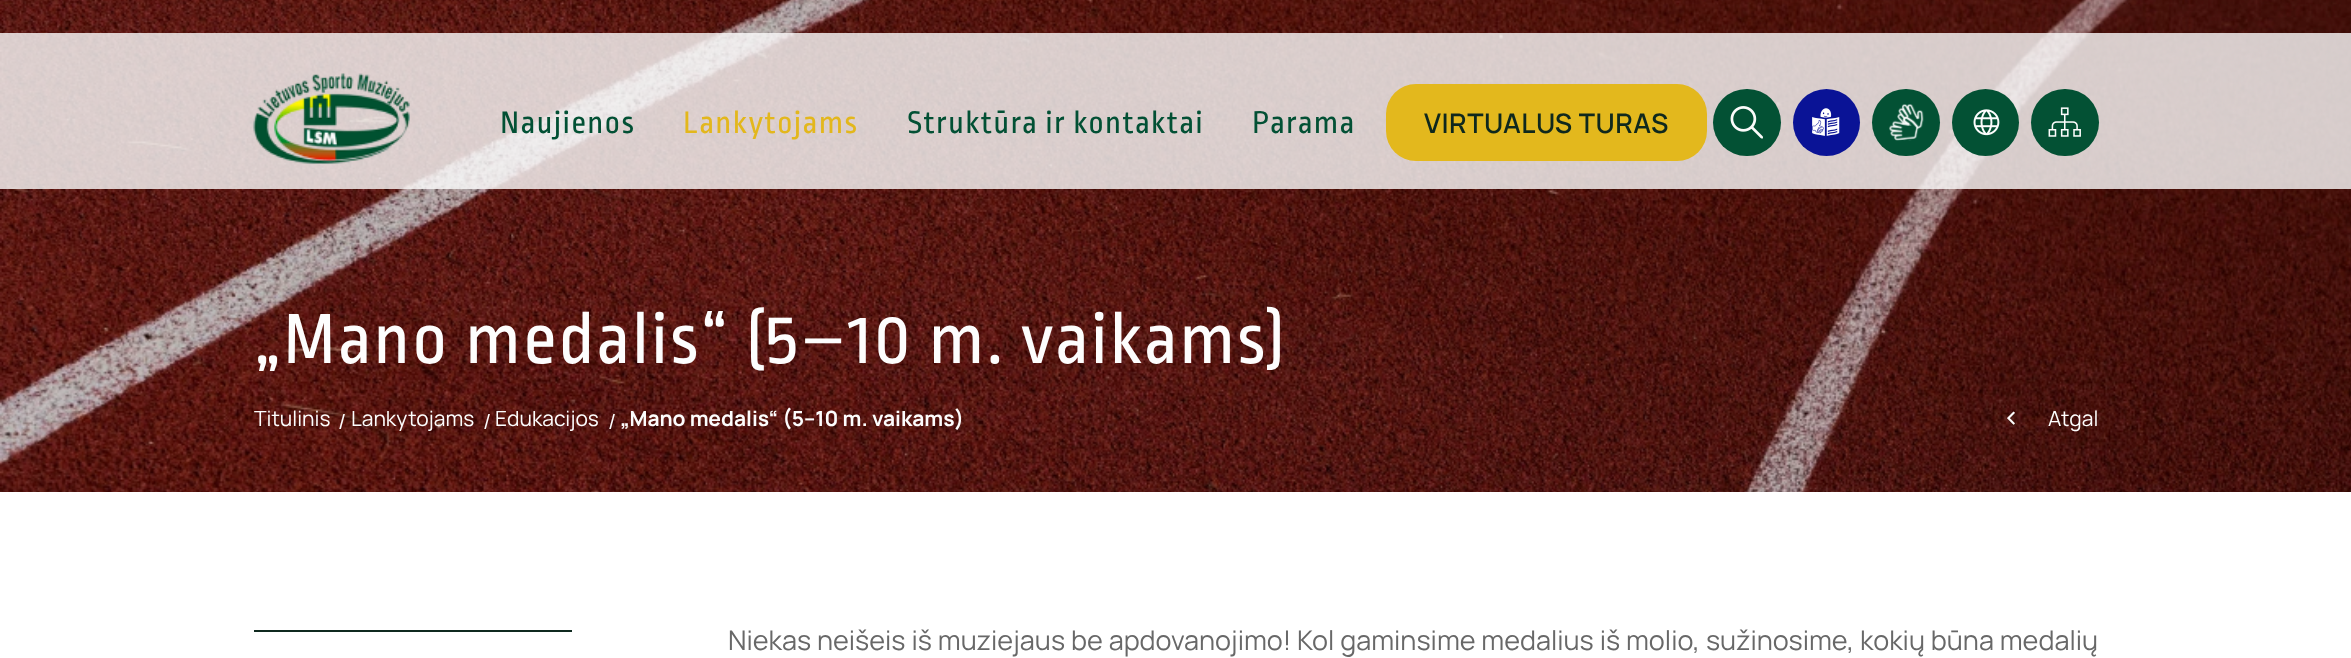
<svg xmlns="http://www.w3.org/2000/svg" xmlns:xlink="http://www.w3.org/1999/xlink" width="2351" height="658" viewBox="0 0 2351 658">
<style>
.cls-1{font:33px Ropa Sans;letter-spacing:1.3px;fill:#025034}
.cls-2{font:33px Ropa Sans;letter-spacing:1.3px;fill:#e3b71c}
.cls-3{font:600 27px Manrope;letter-spacing:0.5px;fill:#0f281d}
.cls-4{font:75px Ropa Sans;letter-spacing:2.1px;fill:#fdfdfd}
.cls-5{font:21px Manrope;fill:#fdfdfd}
.cls-6{font:bold 21px Manrope;fill:#fdfdfd}
.cls-7{font:27px Manrope;fill:#686868}
</style>
<rect width="100%" height="100%" fill="#ffffff"/>
<image xlink:href="image6.png" x="0" y="0" width="2351" height="492"/>
<rect fill="#fdfdfd" fill-opacity="0.8" x="0" y="33" width="2351" height="156"/>
<image xlink:href="image0.png" x="253" y="73" width="157" height="91"/>
<rect fill="#e3b71a" fill-opacity="0.99" x="1386" y="84" width="321" height="77" rx="30"/>
<rect fill="#004f32" fill-opacity="0.99" x="1713" y="89" width="68" height="67" rx="33.5"/>
<image xlink:href="image1.png" x="1730" y="106" width="33" height="33"/>
<circle fill="#0a1396" cx="1826.5" cy="122.5" r="33.5"/>
<image xlink:href="image2.png" x="1812" y="108" width="28" height="28"/>
<rect fill="#004f32" fill-opacity="0.99" x="1872" y="89" width="68" height="67" rx="33.5"/>
<image xlink:href="image3.png" x="1889" y="104" width="35" height="37"/>
<circle fill="#004f32" fill-opacity="0.99" cx="1985.5" cy="122.5" r="33.5"/>
<image xlink:href="image4.png" x="1973" y="109" width="27" height="27"/>
<rect fill="#004f32" fill-opacity="0.99" x="2031" y="89" width="68" height="67" rx="33.5"/>
<image xlink:href="image5.png" x="2048" y="107" width="33" height="30"/>
<image xlink:href="image7.png" x="2007" y="411" width="8" height="14"/>
<rect fill="#0f291f" x="254" y="630" width="318" height="2"/>
<text class="cls-1" x="500" y="133">Naujienos</text>
<text class="cls-2" x="683" y="133">Lankytojams</text>
<text class="cls-1" x="907" y="133">Struktūra ir kontaktai</text>
<text class="cls-1" x="1252" y="133">Parama</text>
<text class="cls-3" x="1424" y="133">VIRTUALUS TURAS</text>
<text class="cls-4" x="254" y="363">„Mano medalis“ (5–10 m. vaikams)</text>
<text class="cls-5" x="254" y="426">Titulinis</text>
<text class="cls-5" x="338" y="429">/</text>
<text class="cls-5" x="351" y="426">Lankytojams</text>
<text class="cls-5" x="483" y="429">/</text>
<text class="cls-5" x="495" y="426">Edukacijos</text>
<text class="cls-5" x="608" y="429">/</text>
<text class="cls-6" x="620" y="426">„Mano medalis“ (5–10 m. vaikams)</text>
<text class="cls-5" x="2048" y="426">Atgal</text>
<text class="cls-7" x="728" y="650" word-spacing="0.5">Niekas neišeis iš muziejaus be apdovanojimo! Kol gaminsime medalius iš molio, sužinosime, kokių būna medalių</text>
</svg>
